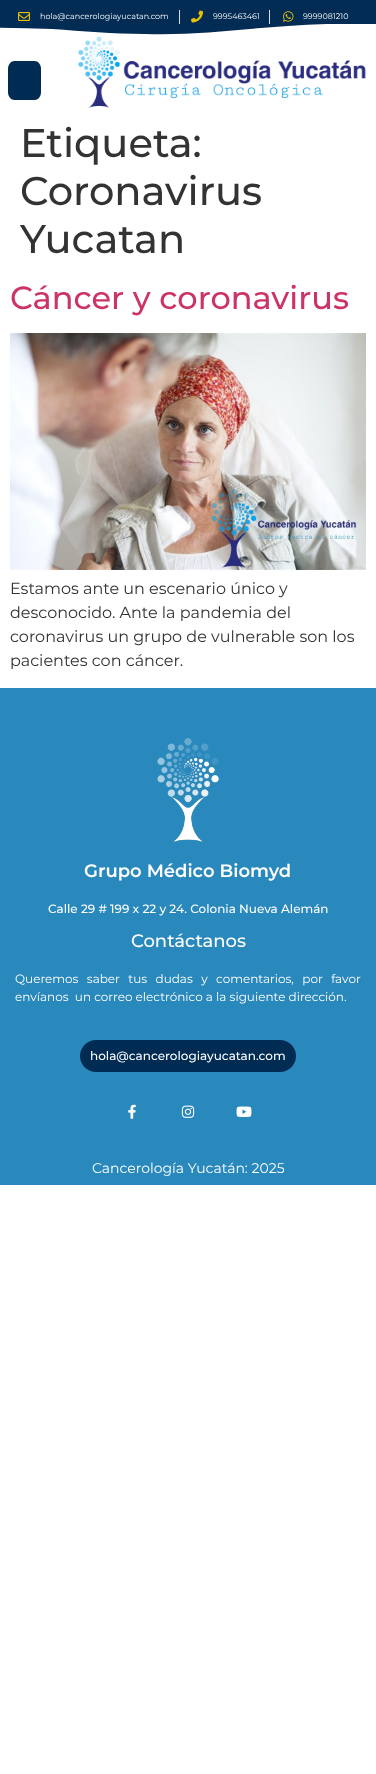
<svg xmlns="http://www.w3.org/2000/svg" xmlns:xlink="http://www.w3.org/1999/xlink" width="376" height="1774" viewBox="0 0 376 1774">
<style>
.cls-1{font:8px Montserrat;fill:#ffffff}
.cls-2{font:500 40px Montserrat;fill:#333333}
.cls-3{font:500 32px Montserrat;fill:#cc3366}
.cls-4{font:16px Montserrat;fill:#333333}
.cls-5{font:600 18px Montserrat;fill:#ffffff}
.cls-6{font:500 12px Montserrat;fill:#ffffff}
.cls-7{font:500 18px Montserrat;fill:#ffffff}
.cls-8{font:12px Montserrat;fill:#ffffff}
.cls-9{font:14px Montserrat;fill:#ffffff}
</style>
<defs>
<clipPath id="clip1"><rect x="0" y="24" width="376" height="12"/></clipPath>
</defs>
<rect width="100%" height="100%" fill="#ffffff"/>
<rect fill="#022c54" x="0" y="0" width="376" height="35"/>
<image xlink:href="image0.png" x="18" y="12" width="12" height="9"/>
<rect fill="#dddddd" x="179" y="10" width="1" height="14"/>
<image xlink:href="image1.png" x="191" y="10" width="12" height="13"/>
<rect fill="#dddddd" x="269" y="10" width="1" height="14"/>
<image xlink:href="image2.png" x="283" y="11" width="11" height="11"/>
<g clip-path="url(#clip1)">
<path fill="#ffffff" d="M144 34C192 36 240 29 288 26C349 22 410 22 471 27V35H-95V32C-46 27 3 27 52 29C83 31 113 34 144 34Z"/>
</g>
<path fill="#002c54" d="M14.5 61H34.5C38 61 41 64.5 41 69V92C41 96.5 38 100 34.5 100H14.5C11 100 8 96.5 8 92V69C8 64.5 11 61 14.5 61Z"/>
<image xlink:href="image3.png" x="78" y="36" width="288" height="72"/>
<image xlink:href="image4.png" x="10" y="333" width="356" height="237"/>
<rect fill="#2988bc" x="0" y="688" width="376" height="497"/>
<image xlink:href="image5.png" x="157" y="738" width="62" height="104"/>
<rect fill="#002c54" x="80" y="1040" width="216" height="32" rx="16"/>
<image xlink:href="image6.png" x="128" y="1104" width="8" height="15"/>
<image xlink:href="image7.png" x="181" y="1105" width="14" height="13"/>
<image xlink:href="image8.png" x="236" y="1106" width="16" height="11"/>
<text class="cls-1" x="40" y="19">hola@cancerologiayucatan.com</text>
<text class="cls-1" x="213" y="19">9995463461</text>
<text class="cls-1" x="303" y="19">9999081210</text>
<text class="cls-2"><tspan x="20" y="157">Etiqueta:</tspan><tspan x="20" y="205">Coronavirus</tspan><tspan x="20" y="253">Yucatan</tspan></text>
<text class="cls-3" x="10" y="309">Cáncer y coronavirus</text>
<text class="cls-4"><tspan x="10" y="594">Estamos ante un escenario único y</tspan><tspan x="10" y="618">desconocido. Ante la pandemia del</tspan><tspan x="10" y="642">coronavirus un grupo de vulnerable son los</tspan><tspan x="10" y="666">pacientes con cáncer.</tspan></text>
<text class="cls-5" x="84" y="877">Grupo Médico Biomyd</text>
<text class="cls-6" x="48" y="913">Calle 29 # 199 x 22 y 24. Colonia Nueva Alemán</text>
<text class="cls-7" x="131" y="947">Contáctanos</text>
<text class="cls-8" xml:space="preserve"><tspan x="15" y="983" word-spacing="5.25">Queremos saber tus dudas y comentarios, por favor</tspan><tspan x="15" y="1001">envíanos  un correo electrónico a la siguiente dirección.</tspan></text>
<text class="cls-6" x="90" y="1060">hola@cancerologiayucatan.com</text>
<text class="cls-9" x="92" y="1173">Cancerología Yucatán: 2025</text>
</svg>
